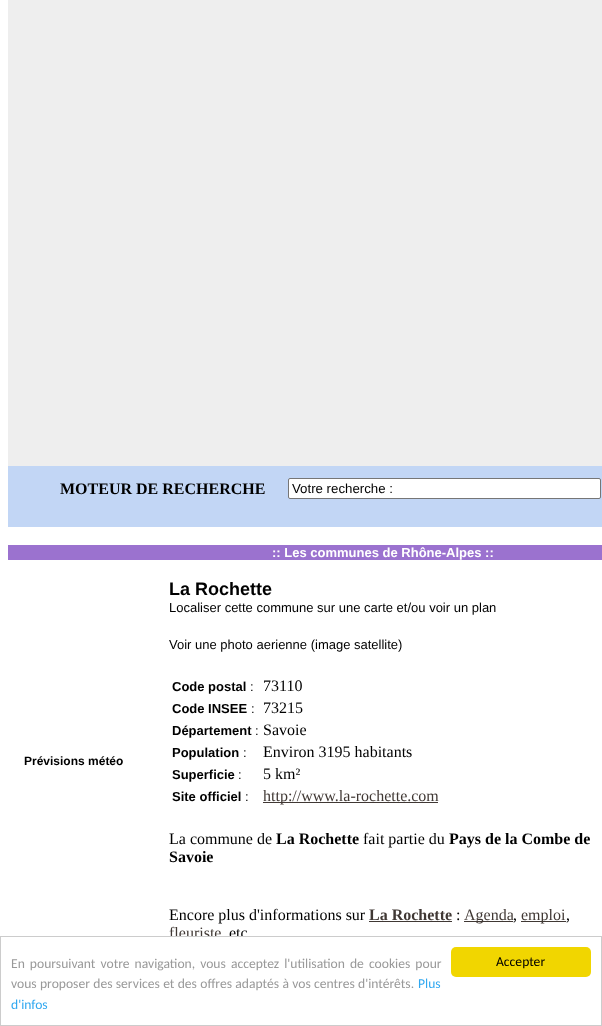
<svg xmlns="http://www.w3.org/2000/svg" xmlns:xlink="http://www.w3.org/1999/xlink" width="602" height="1026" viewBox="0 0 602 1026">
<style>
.cls-1{font:bold 16px Liberation Serif;fill:#000000}
.cls-2{font:13.25px Liberation Sans;fill:#000000}
.cls-3{font:bold 13px Liberation Sans;fill:#ffffff}
.cls-4{font:bold 12px Liberation Sans;fill:#000000}
.cls-5{font:bold 18px Liberation Sans;fill:#000000}
.cls-6{font:13px Liberation Sans;fill:#000000}
.cls-7{font:bold 13px Liberation Sans;fill:#000000}
.cls-8{font:16px Liberation Serif;fill:#000000}
.cls-9{font:16px Liberation Serif;fill:#403834}
.cls-10{font:bold 16px Liberation Serif;fill:#403834}
.cls-11{font:13.6px Carlito;fill:#999999}
.cls-12{font:13.6px Carlito;fill:#31a8f0}
.cls-13{font:13.6px Carlito;fill:#000000}
</style>
<rect width="100%" height="100%" fill="#ffffff"/>
<rect fill="#eeeeee" x="8" y="0" width="594" height="466"/>
<rect fill="#c2d6f5" x="8" y="466" width="594" height="61"/>
<rect fill="#ffffff" stroke="#767676" x="288.5" y="478.5" width="312" height="20" rx="1.5"/>
<rect fill="#9b72cf" x="8" y="545" width="594" height="15"/>
<rect fill="#403834" x="263" y="802" width="175" height="1"/>
<rect fill="#403834" x="369" y="921" width="83" height="1"/>
<rect fill="#403834" x="464" y="921" width="49" height="1"/>
<rect fill="#403834" x="521" y="921" width="45" height="1"/>
<text class="cls-1" x="60" y="494">MOTEUR DE RECHERCHE</text>
<text class="cls-2" x="292" y="493">Votre recherche :</text>
<text class="cls-3" x="272" y="557">:: Les communes de Rhône-Alpes ::</text>
<text class="cls-4" x="24" y="765">Prévisions météo</text>
<text class="cls-5" x="169" y="595">La Rochette</text>
<text class="cls-6" x="169" y="612">Localiser cette commune sur une carte et/ou voir un plan</text>
<text class="cls-6" x="169" y="649">Voir une photo aerienne (image satellite)</text>
<text class="cls-7" x="172" y="691">Code postal</text>
<text class="cls-6" x="250" y="691">:</text>
<text class="cls-8" x="263" y="691">73110</text>
<text class="cls-7" x="172" y="713">Code INSEE</text>
<text class="cls-6" x="251" y="713">:</text>
<text class="cls-8" x="263" y="713">73215</text>
<text class="cls-7" x="172" y="735">Département</text>
<text class="cls-6" x="255" y="735">:</text>
<text class="cls-8" x="263" y="735">Savoie</text>
<text class="cls-7" x="172" y="757">Population</text>
<text class="cls-6" x="243" y="757">:</text>
<text class="cls-8" x="263" y="757">Environ 3195 habitants</text>
<text class="cls-7" x="172" y="779">Superficie</text>
<text class="cls-6" x="238" y="779">:</text>
<text class="cls-8" x="263" y="779">5 km²</text>
<text class="cls-7" x="172" y="801">Site officiel</text>
<text class="cls-6" x="245" y="801">:</text>
<text class="cls-9" x="263" y="801">http://www.la-rochette.com</text>
<text class="cls-8" x="169" y="844">La commune de</text>
<text class="cls-1" x="276" y="844">La Rochette</text>
<text class="cls-8" x="363" y="844">fait partie du</text>
<text class="cls-1" x="449" y="844">Pays de la Combe de</text>
<text class="cls-1" x="169" y="862">Savoie</text>
<text class="cls-8" x="169" y="920">Encore plus d'informations sur</text>
<text class="cls-10" x="369" y="920">La Rochette</text>
<text class="cls-8" x="456" y="920">:</text>
<text class="cls-9" x="464" y="920">Agenda</text>
<text class="cls-8" x="513" y="920">,</text>
<text class="cls-9" x="521" y="920">emploi</text>
<text class="cls-8" x="566" y="920">,</text>
<text class="cls-9" x="169" y="938">fleuriste</text>
<text class="cls-8" x="229" y="938">etc</text>
<rect fill="#ffffff" x="169" y="937" width="79" height="2"/>
<rect fill="none" stroke="#cccccc" x="0.5" y="936.5" width="601" height="89"/>
<text class="cls-11"><tspan x="11" y="968" word-spacing="2">En poursuivant votre navigation, vous acceptez l'utilisation de cookies pour</tspan><tspan x="11" y="988" word-spacing="0.25">vous proposer des services et des offres adaptés à vos centres d'intérêts.</tspan></text>
<text class="cls-12" x="418" y="988">Plus</text>
<text class="cls-12" x="11" y="1009">d'infos</text>
<rect fill="#f1d600" x="451" y="947" width="140" height="30" rx="5"/>
<text class="cls-13" x="496" y="966">Accepter</text>
</svg>
